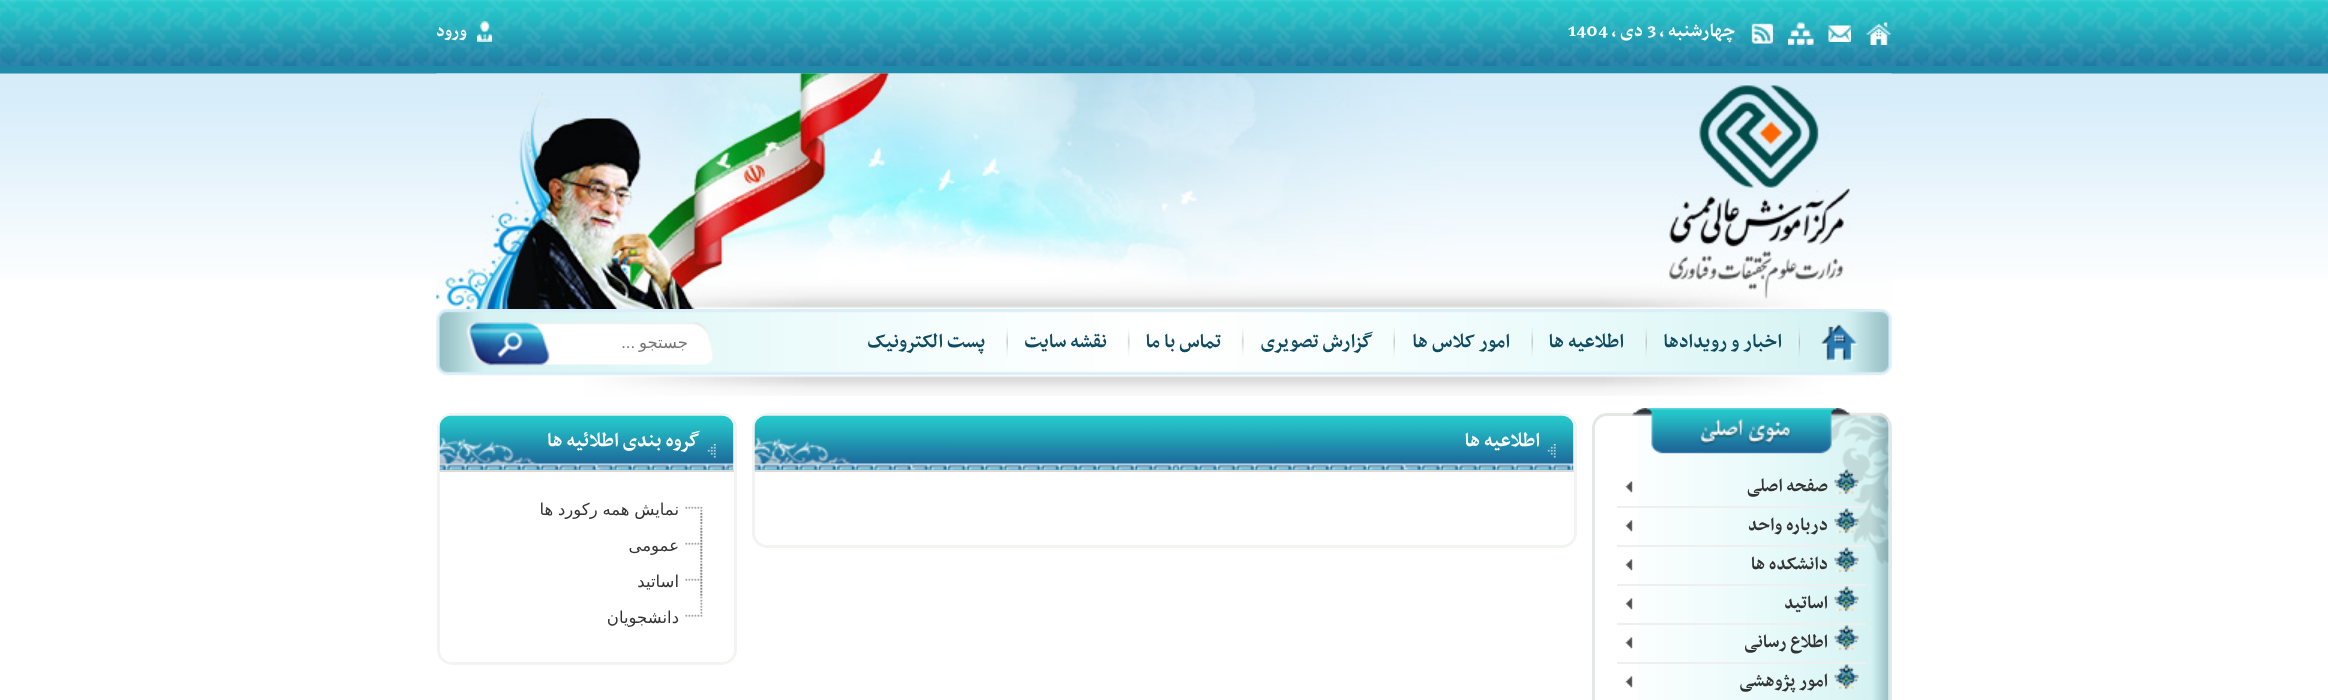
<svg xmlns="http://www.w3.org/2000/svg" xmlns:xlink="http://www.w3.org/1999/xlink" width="2328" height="700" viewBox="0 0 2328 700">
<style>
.cls-1{font:bold 21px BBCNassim;direction:rtl;fill:#ffffff}
.cls-2{font:bold 21px BBCNassim;fill:#ffffff}
.cls-3{font:bold 20px BBCNassim;direction:rtl;fill:#ffffff}
.cls-4{font:bold 22.5px BBCNassim;direction:rtl;fill:#0f4b60}
.cls-5{font:16.5px DejaVu Sans;direction:rtl;fill:#757575}
.cls-6{font:16.5px Liberation Sans;direction:rtl;fill:#757575}
.cls-7{font:bold 22.5px BBCNassim;direction:rtl;fill:#ffffff}
.cls-8{font:16.5px DejaVu Sans;direction:rtl;fill:#333333}
.cls-9{font:bold 21px BBCNassim;direction:rtl;fill:#333333}
</style>
<rect width="100%" height="100%" fill="#ffffff"/>
<image xlink:href="image0.png" x="0" y="0" width="2328" height="66"/>
<rect fill="#208baa" x="0" y="66" width="2328" height="8"/>
<image xlink:href="image1.png" x="1866" y="22" width="26" height="23"/>
<image xlink:href="image2.png" x="1828" y="25" width="23" height="17"/>
<image xlink:href="image3.png" x="1788" y="22" width="26" height="23"/>
<image xlink:href="image4.png" x="1751" y="23" width="22" height="21"/>
<image xlink:href="image5.png" x="477" y="21" width="15" height="21"/>
<image xlink:href="image6.png" x="0" y="73" width="2328" height="207"/>
<image xlink:href="image7.png" x="436" y="73" width="1456" height="236"/>
<image xlink:href="image8.png" x="436" y="309" width="1456" height="87"/>
<image xlink:href="image9.png" x="1797" y="328" width="3" height="29"/>
<image xlink:href="image10.png" x="1644" y="327" width="3" height="30"/>
<image xlink:href="image11.png" x="1530" y="327" width="3" height="30"/>
<image xlink:href="image12.png" x="1393" y="327" width="2" height="30"/>
<image xlink:href="image13.png" x="1241" y="327" width="3" height="29"/>
<image xlink:href="image14.png" x="1127" y="327" width="3" height="29"/>
<image xlink:href="image15.png" x="1006" y="327" width="2" height="30"/>
<rect fill="none" stroke="#f2f4f2" stroke-width="3" x="753.5" y="414.5" width="822" height="132" rx="13.5"/>
<image xlink:href="image16.png" x="754" y="415" width="820" height="56"/>
<rect fill="#dadada" x="755" y="470" width="819" height="2"/>
<image xlink:href="image17.png" x="1547" y="444" width="9" height="14"/>
<rect fill="none" stroke="#f2f4f2" stroke-width="3" x="438.5" y="414.5" width="297" height="249" rx="13.5"/>
<image xlink:href="image18.png" x="439" y="415" width="295" height="56"/>
<rect fill="#dadada" x="440" y="470" width="294" height="2"/>
<image xlink:href="image19.png" x="707" y="444" width="9" height="14"/>
<image xlink:href="image20.png" x="700" y="513" width="3" height="14"/>
<image xlink:href="image21.png" x="685" y="506" width="18" height="18"/>
<image xlink:href="image22.png" x="700" y="526" width="3" height="37"/>
<image xlink:href="image23.png" x="685" y="527" width="18" height="33"/>
<image xlink:href="image24.png" x="700" y="562" width="3" height="37"/>
<image xlink:href="image23.png" x="685" y="563" width="18" height="33"/>
<image xlink:href="image25.png" x="685" y="599" width="18" height="18"/>
<image xlink:href="image26.png" x="1638" y="412" width="251" height="288"/>
<rect fill="none" stroke="#e3e8e4" stroke-width="3" x="1593.5" y="414.5" width="297" height="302" rx="13.5"/>
<image xlink:href="image27.png" x="1829" y="415" width="60" height="149"/>
<image xlink:href="image28.png" x="1632" y="408" width="219" height="46"/>
<image xlink:href="image29.png" x="1834" y="469" width="25" height="26"/>
<rect fill="#efefef" x="1617" y="506" width="249" height="2"/>
<image xlink:href="image30.png" x="1625" y="481" width="8" height="12"/>
<image xlink:href="image31.png" x="1834" y="508" width="25" height="26"/>
<rect fill="#efefef" x="1617" y="545" width="249" height="2"/>
<image xlink:href="image30.png" x="1625" y="520" width="8" height="12"/>
<image xlink:href="image32.png" x="1834" y="547" width="25" height="26"/>
<rect fill="#efefef" x="1617" y="584" width="249" height="2"/>
<image xlink:href="image30.png" x="1625" y="559" width="8" height="12"/>
<image xlink:href="image32.png" x="1834" y="586" width="25" height="26"/>
<rect fill="#efefef" x="1617" y="623" width="249" height="2"/>
<image xlink:href="image30.png" x="1625" y="598" width="8" height="12"/>
<image xlink:href="image32.png" x="1834" y="625" width="25" height="26"/>
<rect fill="#efefef" x="1617" y="662" width="249" height="2"/>
<image xlink:href="image30.png" x="1625" y="637" width="8" height="12"/>
<image xlink:href="image32.png" x="1834" y="664" width="25" height="26"/>
<image xlink:href="image30.png" x="1625" y="676" width="8" height="12"/>
<text class="cls-1" x="1735" y="36">چهارشنبه ،</text>
<text class="cls-2" x="1647" y="36">3</text>
<text class="cls-1" x="1643" y="36">دی ،</text>
<text class="cls-2" x="1568" y="36">1404</text>
<text class="cls-3" x="467" y="36">ورود</text>
<text class="cls-4" x="1782" y="347">اخبار و رویدادها</text>
<text class="cls-4" x="1624" y="347">اطلاعیه ها</text>
<text class="cls-4" x="1510" y="347">امور کلاس ها</text>
<text class="cls-4" x="1373" y="347">گزارش تصویری</text>
<text class="cls-4" x="1221" y="347">تماس با ما</text>
<text class="cls-4" x="1107" y="347">نقشه سایت</text>
<text class="cls-4" x="985" y="347">پست الکترونیک</text>
<text class="cls-5" x="688" y="348">جستجو</text>
<text class="cls-6" x="635" y="348">...</text>
<text class="cls-7" x="1540" y="446">اطلاعیه ها</text>
<text class="cls-7" x="700" y="446">گروه بندی اطلائیه ها</text>
<text class="cls-8" x="679" y="515" word-spacing="-0.5">نمایش همه رکورد ها</text>
<text class="cls-8" x="679" y="551">عمومی</text>
<text class="cls-8" x="679" y="587">اساتید</text>
<text class="cls-8" x="679" y="623">دانشجویان</text>
<text class="cls-9"><tspan x="1828" y="491">صفحه اصلی</tspan><tspan x="1828" y="530">درباره واحد</tspan><tspan x="1828" y="569">دانشکده ها</tspan><tspan x="1828" y="608">اساتید</tspan><tspan x="1828" y="647">اطلاع رسانی</tspan><tspan x="1828" y="686">امور پژوهشی</tspan></text>
</svg>
